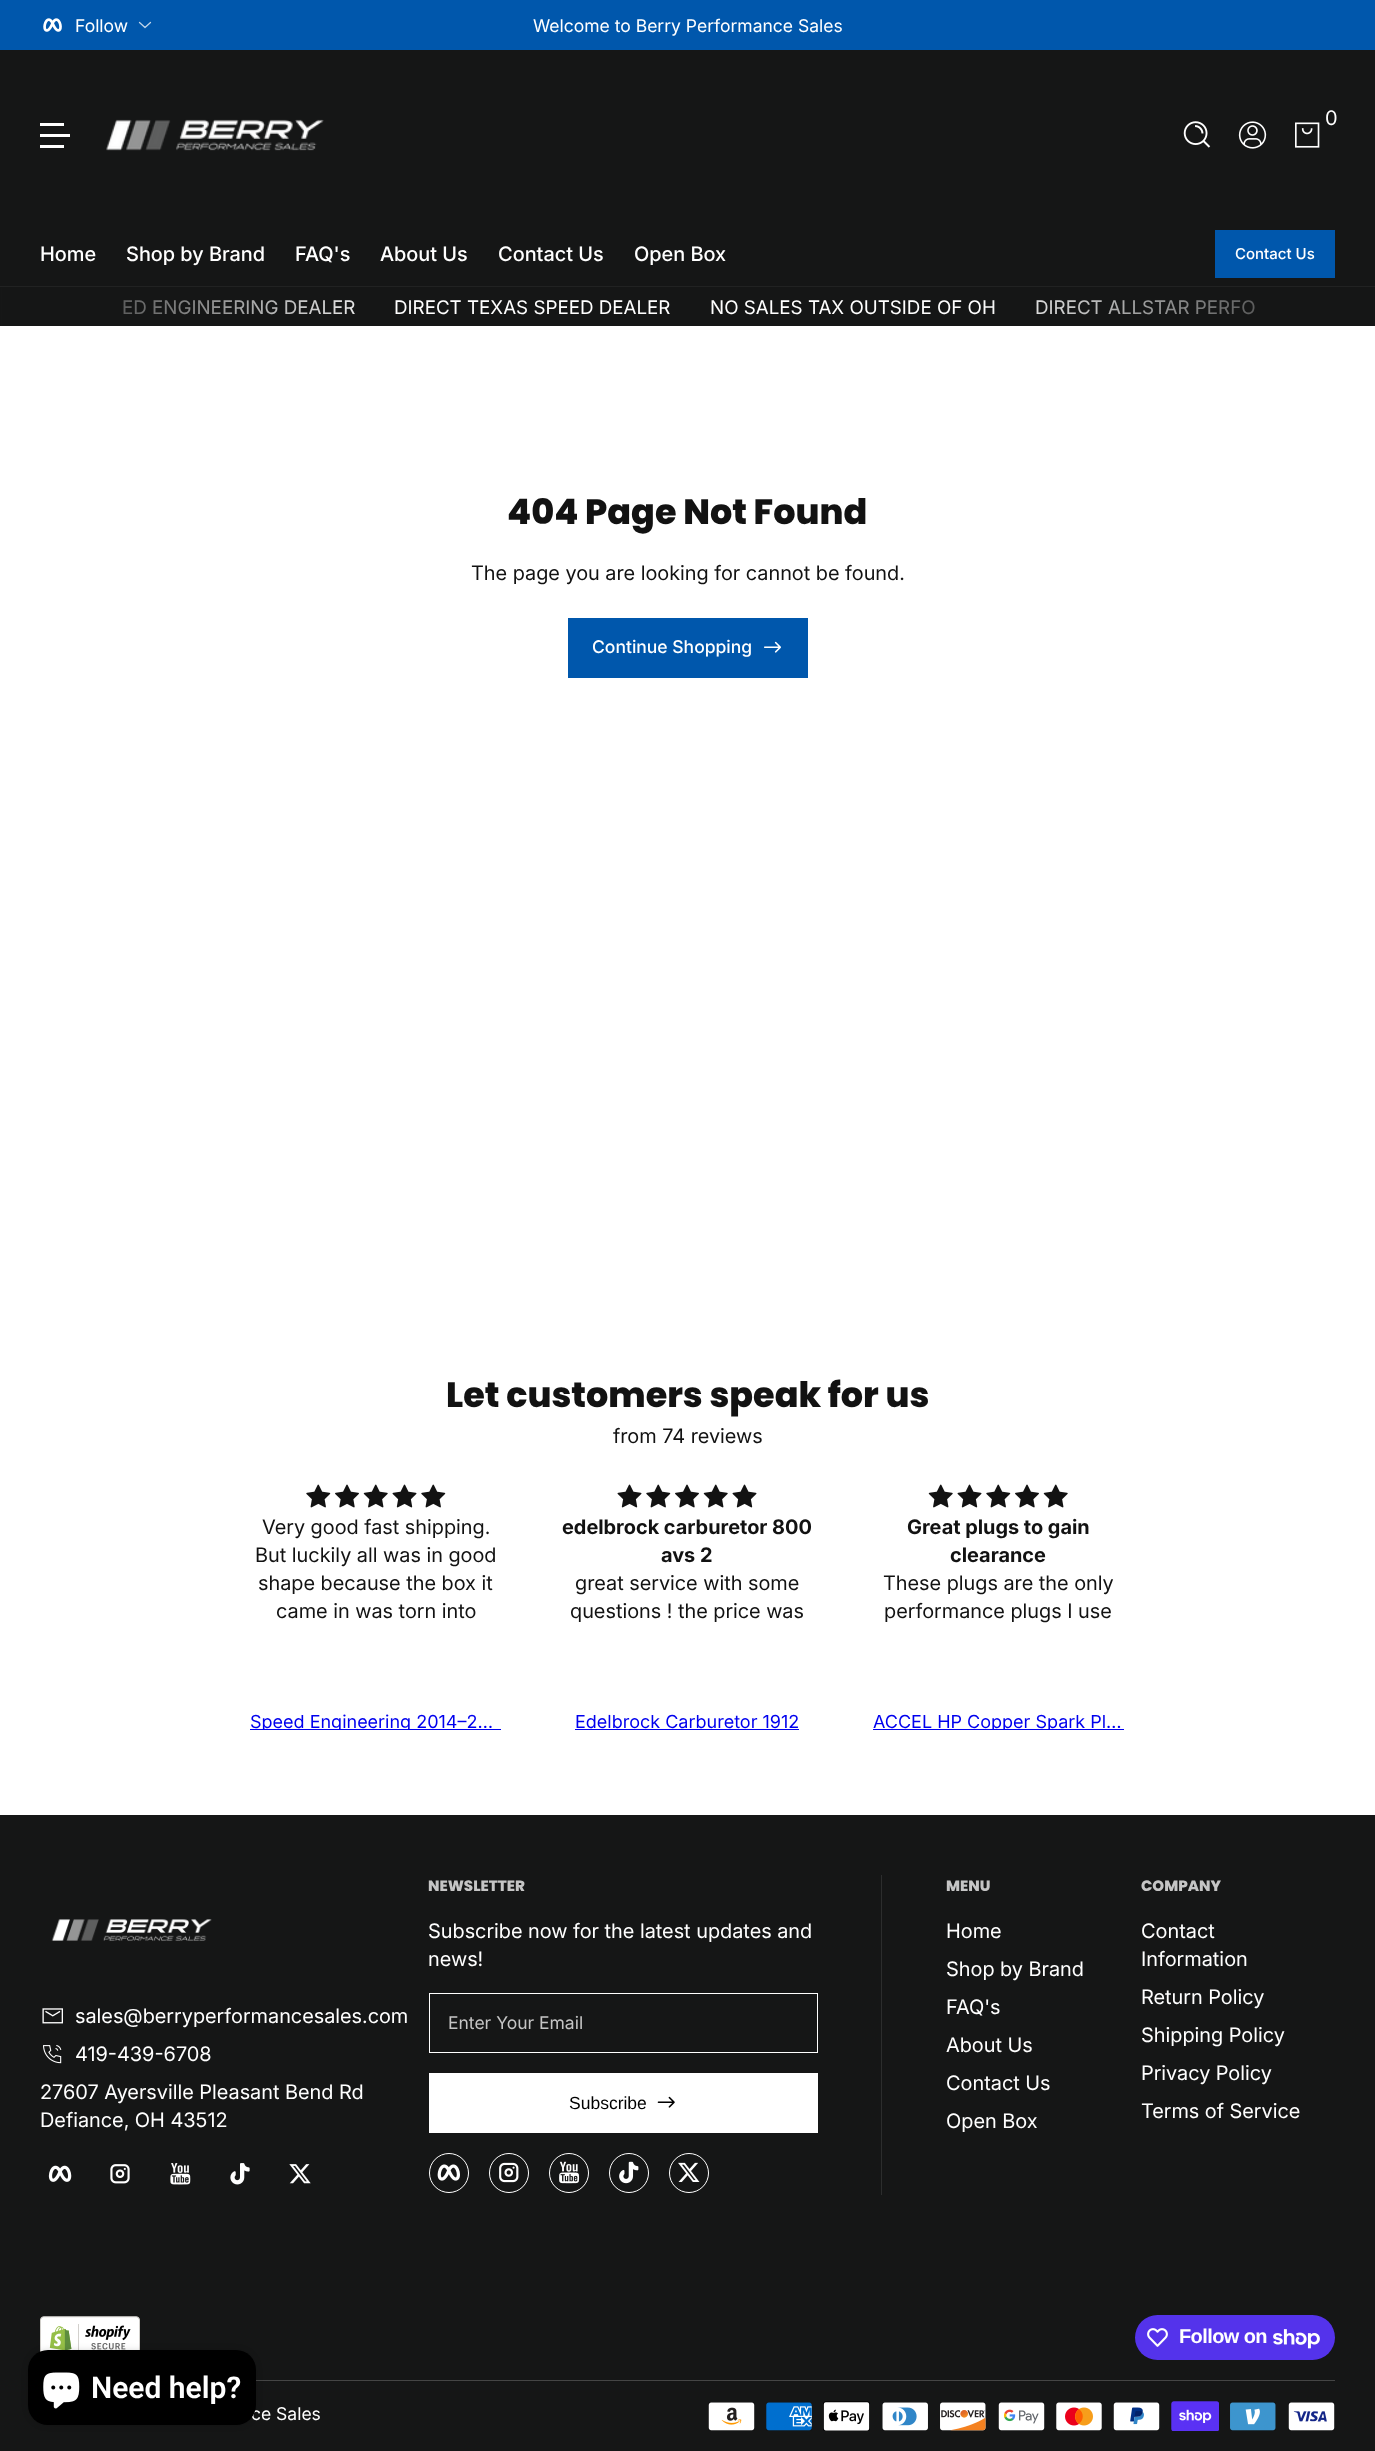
<svg xmlns="http://www.w3.org/2000/svg" xmlns:xlink="http://www.w3.org/1999/xlink" width="1375" height="2451" viewBox="0 0 1375 2451">
<style>
.cls-1{font:17.5px 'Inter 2';fill:#ffffff}
.cls-2{font:20px Inter;fill:#ffffff}
.cls-3{font:500 20px 'Inter 2';fill:#ffffff}
.cls-4{font:500 15px Inter;fill:#ffffff}
.cls-5{font:18.75px 'Inter 2';fill:#ffffff}
.cls-6{font:800 35px Poppins;fill:#121212}
.cls-7{font:20px Inter;fill:#121212}
.cls-8{font:500 17.5px Inter;fill:#ffffff}
.cls-9{font:18px 'Inter 2';fill:#0000ee}
.cls-10{font:bold 20px Inter;fill:#121212}
.cls-11{font:800 15px Poppins;fill:#c5c5c5}
.cls-12{font:17.5px 'Inter 2';fill:#c5c5c5}
.cls-13{font:17.5px Liberation Sans;fill:#000000}
.cls-14{font:bold 20px Liberation Sans;letter-spacing:-0.6px;fill:#ffffff}
.cls-15{font:600 30px Roboto;fill:#ffffff}
</style>
<defs>
<linearGradient id="g1" gradientUnits="userSpaceOnUse" x1="0" y1="307" x2="400" y2="307"><stop offset="0" stop-color="#151616"/><stop offset="1" stop-color="#151616" stop-opacity="0"/></linearGradient>
<linearGradient id="g2" gradientUnits="userSpaceOnUse" x1="1375" y1="307" x2="975" y2="307"><stop offset="0" stop-color="#151616"/><stop offset="1" stop-color="#151616" stop-opacity="0"/></linearGradient>
<clipPath id="clip1"><rect x="250" y="1709" width="251" height="21"/></clipPath>
<clipPath id="clip2"><rect x="873" y="1709" width="251" height="21"/></clipPath>
</defs>
<rect width="100%" height="100%" fill="#ffffff"/>
<rect fill="#0057ac" x="0" y="0" width="1375" height="50"/>
<image xlink:href="image0.png" x="43" y="18" width="19" height="14"/>
<path fill="none" stroke="#bfd5ea" stroke-width="1.3" stroke-linecap="round" stroke-linejoin="round" d="M150.5 22.5L145 27.5L139.5 22.5"/>
<rect fill="#151616" x="0" y="50" width="1375" height="238"/>
<rect fill="#ffffff" x="40" y="123" width="24" height="3"/>
<rect fill="#ffffff" x="40" y="134" width="30" height="3"/>
<rect fill="#ffffff" x="40" y="145" width="24" height="3"/>
<image xlink:href="image1.png" x="106" y="119" width="218" height="32"/>
<image xlink:href="image2.png" x="1295" y="122" width="25" height="26"/>
<image xlink:href="image3.png" x="1183" y="121" width="28" height="27"/>
<image xlink:href="image4.png" x="1238" y="121" width="29" height="28"/>
<rect fill="#0057ac" x="1215" y="230" width="120" height="48"/>
<rect fill="#212222" x="0" y="286" width="1375" height="1"/>
<rect fill="#151616" x="2" y="288" width="1371" height="38"/>
<rect fill="#0057ac" x="568" y="618" width="240" height="60"/>
<image xlink:href="image5.png" x="764" y="641" width="17" height="12"/>
<image xlink:href="image6.png" x="306" y="1484" width="25" height="24"/>
<image xlink:href="image7.png" x="335" y="1484" width="24" height="24"/>
<image xlink:href="image8.png" x="363" y="1484" width="25" height="24"/>
<image xlink:href="image9.png" x="392" y="1484" width="25" height="24"/>
<image xlink:href="image6.png" x="421" y="1484" width="25" height="24"/>
<rect fill="#0000ee" x="250" y="1729" width="251" height="1"/>
<image xlink:href="image9.png" x="617" y="1484" width="25" height="24"/>
<image xlink:href="image6.png" x="646" y="1484" width="25" height="24"/>
<image xlink:href="image7.png" x="675" y="1484" width="24" height="24"/>
<image xlink:href="image8.png" x="703" y="1484" width="25" height="24"/>
<image xlink:href="image9.png" x="732" y="1484" width="25" height="24"/>
<rect fill="#0000ee" x="575" y="1729" width="224" height="1"/>
<image xlink:href="image8.png" x="928" y="1484" width="25" height="24"/>
<image xlink:href="image9.png" x="957" y="1484" width="25" height="24"/>
<image xlink:href="image6.png" x="986" y="1484" width="25" height="24"/>
<image xlink:href="image7.png" x="1015" y="1484" width="24" height="24"/>
<image xlink:href="image8.png" x="1043" y="1484" width="25" height="24"/>
<rect fill="#0000ee" x="873" y="1729" width="251" height="1"/>
<rect fill="#151616" x="0" y="1815" width="1375" height="636"/>
<image xlink:href="image10.png" x="51" y="1919" width="161" height="22"/>
<image xlink:href="image11.png" x="42" y="2008" width="21" height="16"/>
<image xlink:href="image12.png" x="43" y="2045" width="19" height="19"/>
<image xlink:href="image13.png" x="48" y="2165" width="24" height="17"/>
<image xlink:href="image14.png" x="110" y="2164" width="20" height="20"/>
<image xlink:href="image15.png" x="170" y="2163" width="21" height="22"/>
<image xlink:href="image16.png" x="230" y="2163" width="20" height="22"/>
<image xlink:href="image17.png" x="289" y="2164" width="22" height="20"/>
<rect fill="none" stroke="#ffffff" x="429.5" y="1993.5" width="388" height="59"/>
<rect fill="#ffffff" x="429" y="2073" width="389" height="60"/>
<image xlink:href="image18.png" x="657" y="2096" width="18" height="12"/>
<image xlink:href="image19.png" x="437" y="2164" width="23" height="17"/>
<circle fill="none" stroke="#ffffff" cx="449" cy="2173" r="19.5"/>
<image xlink:href="image20.png" x="499" y="2162" width="20" height="21"/>
<circle fill="none" stroke="#ffffff" cx="509" cy="2173" r="19.5"/>
<image xlink:href="image21.png" x="559" y="2161" width="21" height="23"/>
<circle fill="none" stroke="#ffffff" cx="569" cy="2173" r="19.5"/>
<image xlink:href="image22.png" x="619" y="2161" width="20" height="23"/>
<circle fill="none" stroke="#ffffff" cx="629" cy="2173" r="19.5"/>
<image xlink:href="image23.png" x="678" y="2162" width="22" height="20"/>
<circle fill="none" stroke="#ffffff" cx="689" cy="2173" r="19.5"/>
<rect fill="#2c2d2d" x="881" y="1875" width="1" height="320"/>
<image xlink:href="image24.png" x="40" y="2316" width="100" height="36"/>
<rect fill="#5433eb" x="1135" y="2315" width="200" height="45" rx="22.5"/>
<image xlink:href="image25.png" x="1147" y="2328" width="21" height="19"/>
<image xlink:href="image26.png" x="1273" y="2329" width="47" height="20"/>
<rect fill="#444545" x="256" y="2380" width="1079" height="1"/>
<image xlink:href="image27.png" x="708" y="2402" width="47" height="29"/>
<image xlink:href="image28.png" x="766" y="2402" width="46" height="29"/>
<image xlink:href="image29.png" x="823" y="2401" width="47" height="30"/>
<image xlink:href="image30.png" x="882" y="2402" width="46" height="29"/>
<image xlink:href="image31.png" x="940" y="2402" width="46" height="29"/>
<image xlink:href="image32.png" x="998" y="2402" width="47" height="29"/>
<image xlink:href="image33.png" x="1056" y="2402" width="46" height="29"/>
<image xlink:href="image34.png" x="1113" y="2402" width="47" height="29"/>
<image xlink:href="image35.png" x="1171" y="2401" width="48" height="30"/>
<image xlink:href="image36.png" x="1230" y="2402" width="46" height="29"/>
<image xlink:href="image37.png" x="1288" y="2402" width="47" height="29"/>
<rect fill="#000000" fill-opacity="0.15" filter="blur(3px)" x="28" y="2350" width="228" height="75" rx="20"/>
<text class="cls-1" x="75" y="32">Follow</text>
<text class="cls-1" x="533" y="32">Welcome to Berry Performance Sales</text>
<text class="cls-2" x="1325" y="125">0</text>
<text class="cls-3" x="40" y="261">Home</text>
<text class="cls-3" x="126" y="261">Shop by Brand</text>
<text class="cls-3" x="295" y="261">FAQ's</text>
<text class="cls-3" x="380" y="261">About Us</text>
<text class="cls-3" x="498" y="261">Contact Us</text>
<text class="cls-3" x="634" y="261">Open Box</text>
<text class="cls-4" x="1235" y="259">Contact Us</text>
<text class="cls-5" x="122" y="314">ED ENGINEERING DEALER</text>
<rect fill="url(#g1)" x="0" y="288" width="354" height="38"/>
<text class="cls-5" x="394" y="314">DIRECT TEXAS SPEED DEALER</text>
<text class="cls-5" x="710" y="314">NO SALES TAX OUTSIDE OF OH</text>
<text class="cls-5" x="1035" y="314">DIRECT ALLSTAR PERFO</text>
<rect fill="url(#g2)" x="984" y="288" width="391" height="38"/>
<text class="cls-6" x="507" y="524">404 Page Not Found</text>
<text class="cls-7" x="471" y="580">The page you are looking for cannot be found.</text>
<text class="cls-8" x="592" y="653">Continue Shopping</text>
<text class="cls-6" x="446" y="1407">Let customers speak for us</text>
<text class="cls-7" x="613" y="1443">from 74 reviews</text>
<text class="cls-7" x="262" y="1534">Very good fast shipping.</text>
<text class="cls-7" x="255" y="1562">But luckily all was in good</text>
<text class="cls-7" x="258" y="1590">shape because the box it</text>
<text class="cls-7" x="276" y="1618">came in was torn into</text>
<g clip-path="url(#clip1)">
<text class="cls-9" x="250" y="1728">Speed Engineering 2014–2…</text>
</g>
<text class="cls-10" x="562" y="1534">edelbrock carburetor 800</text>
<text class="cls-10" x="661" y="1562">avs 2</text>
<text class="cls-7" x="575" y="1590">great service with some</text>
<text class="cls-7" x="570" y="1618">questions ! the price was</text>
<text class="cls-9" x="575" y="1728">Edelbrock Carburetor 1912</text>
<text class="cls-10" x="907" y="1534">Great plugs to gain</text>
<text class="cls-10" x="950" y="1562">clearance</text>
<text class="cls-7" x="883" y="1590">These plugs are the only</text>
<text class="cls-7" x="884" y="1618">performance plugs I use</text>
<g clip-path="url(#clip2)">
<text class="cls-9" x="873" y="1728">ACCEL HP Copper Spark Pl…</text>
</g>
<text class="cls-2"><tspan x="75" y="2023">sales@berryperformancesales.com</tspan><tspan x="75" y="2061">419-439-6708</tspan></text>
<text class="cls-2"><tspan x="40" y="2099">27607 Ayersville Pleasant Bend Rd</tspan><tspan x="40" y="2127">Defiance, OH 43512</tspan></text>
<text class="cls-11" x="428" y="1891">NEWSLETTER</text>
<text class="cls-2"><tspan x="428" y="1938">Subscribe now for the latest updates and</tspan><tspan x="428" y="1966">news!</tspan></text>
<text class="cls-12" x="448" y="2029">Enter Your Email</text>
<text class="cls-13" x="569" y="2109">Subscribe</text>
<text class="cls-11" x="946" y="1891">MENU</text>
<text class="cls-2"><tspan x="946" y="1938">Home</tspan><tspan x="946" y="1976">Shop by Brand</tspan><tspan x="946" y="2014">FAQ's</tspan><tspan x="946" y="2052">About Us</tspan><tspan x="946" y="2090">Contact Us</tspan><tspan x="946" y="2128">Open Box</tspan></text>
<text class="cls-11" x="1141" y="1891">COMPANY</text>
<text class="cls-2"><tspan x="1141" y="1938">Contact</tspan><tspan x="1141" y="1966">Information</tspan><tspan x="1141" y="2004">Return Policy</tspan><tspan x="1141" y="2042">Shipping Policy</tspan><tspan x="1141" y="2080">Privacy Policy</tspan><tspan x="1141" y="2118">Terms of Service</tspan></text>
<text class="cls-14" x="1179" y="2343">Follow on</text>
<text class="cls-1" x="251" y="2420">ce Sales</text>
<rect fill="#000000" x="28" y="2350" width="228" height="75" rx="20"/>
<image xlink:href="image38.png" x="43" y="2372" width="37" height="37"/>
<text class="cls-15" x="91" y="2398">Need help?</text>
</svg>
